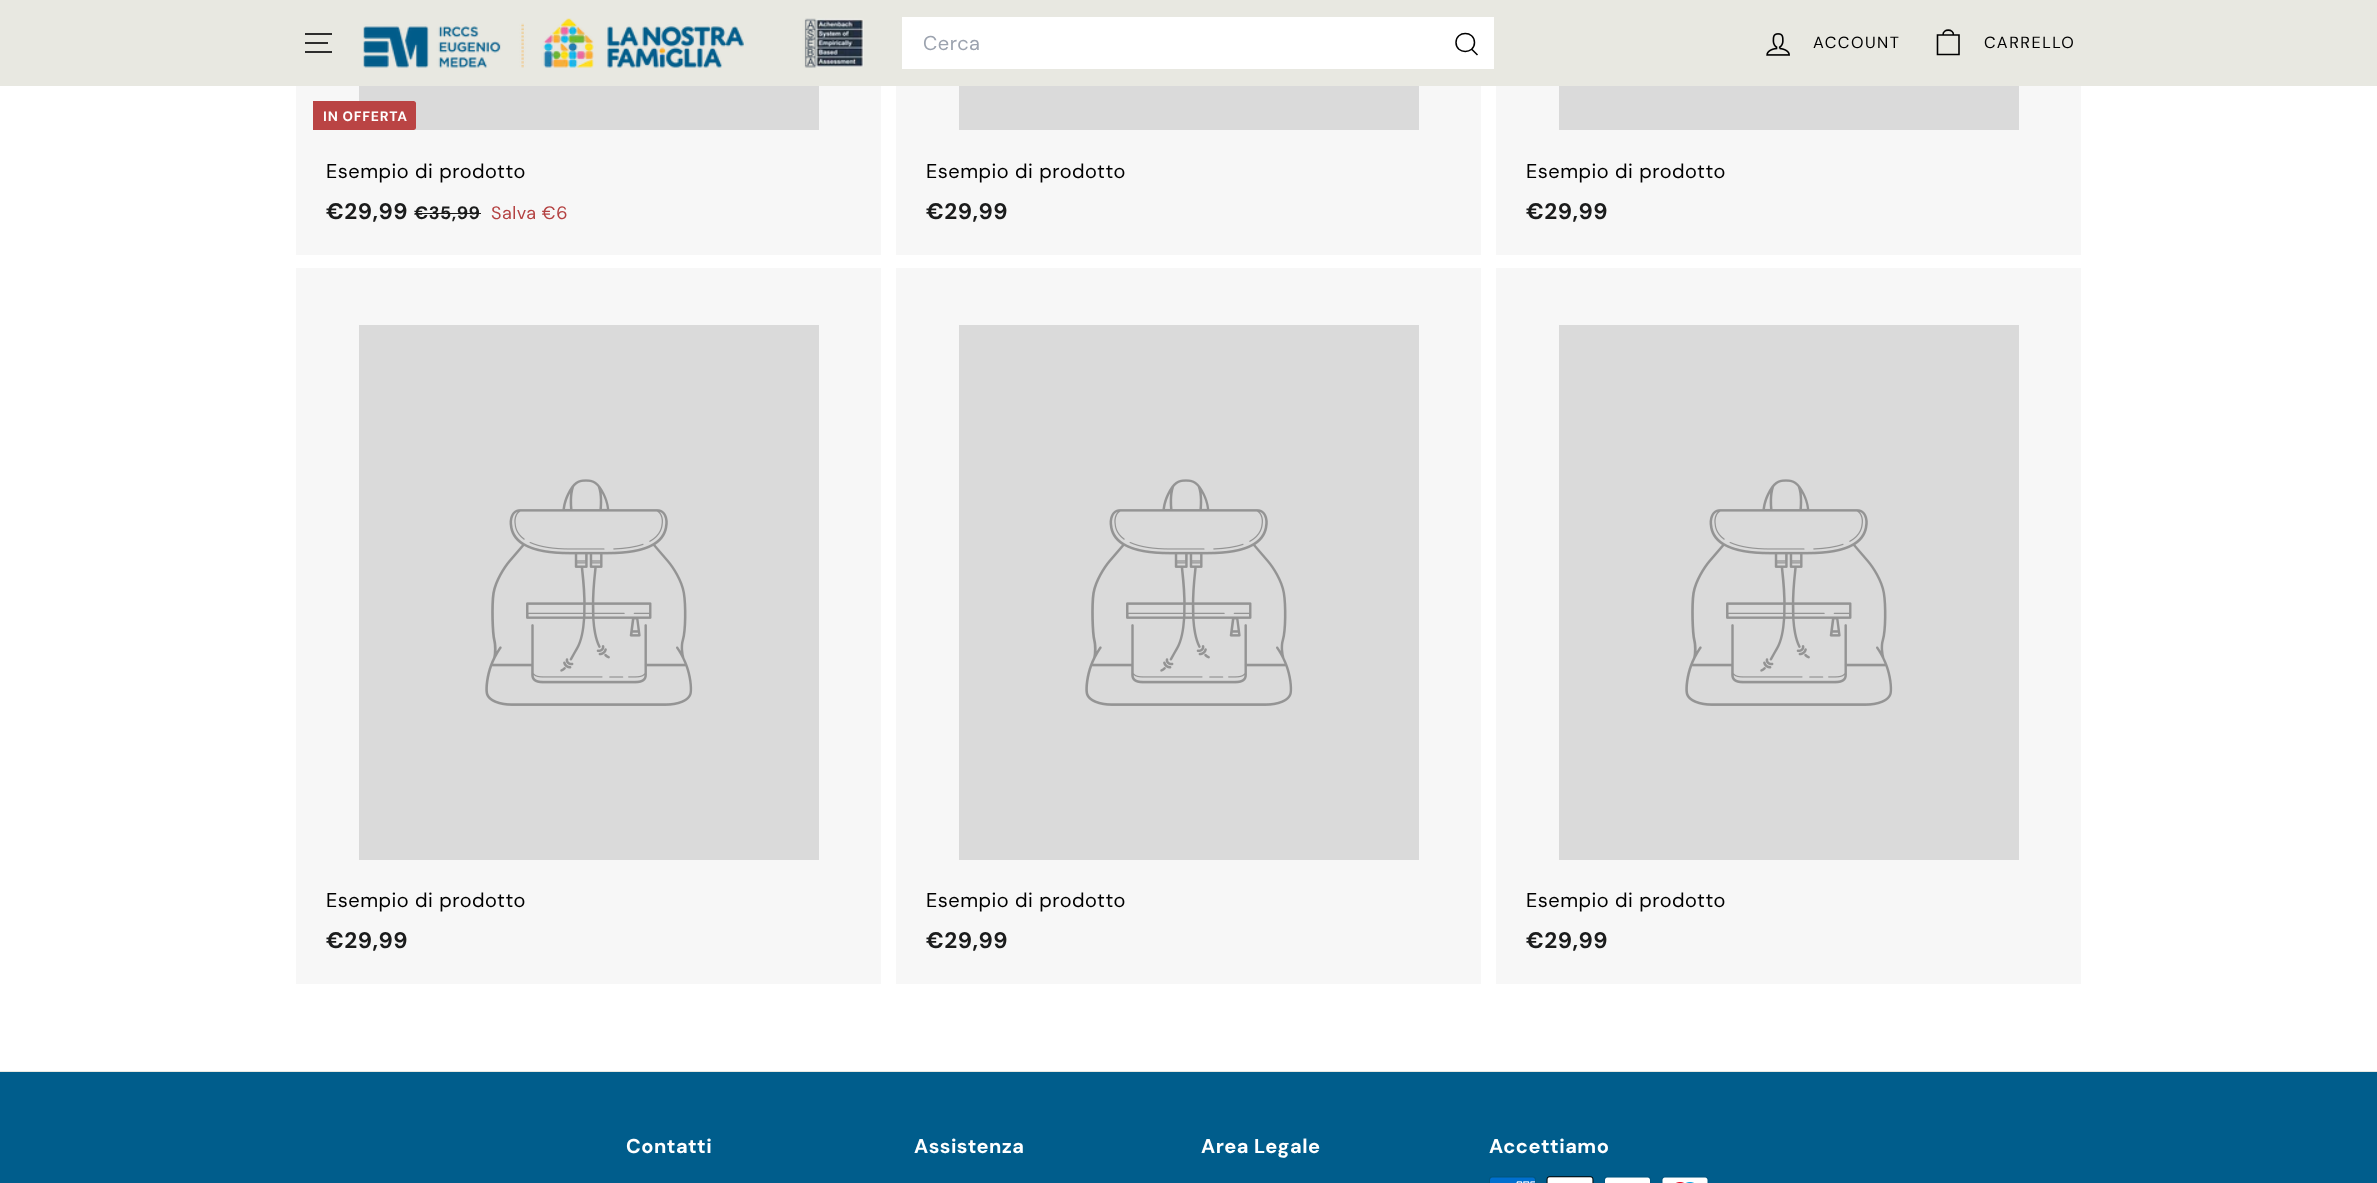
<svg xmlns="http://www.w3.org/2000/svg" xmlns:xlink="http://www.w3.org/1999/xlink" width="2377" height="1183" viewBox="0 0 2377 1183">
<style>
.cls-1{font:20px DM Sans;letter-spacing:0.5px;fill:#9ca3af}
.cls-2{font:16.25px 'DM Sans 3';letter-spacing:1.5px;fill:#000000}
.cls-3{font:bold 13.75px 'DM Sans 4';letter-spacing:0.75px;fill:#ffffff}
.cls-4{font:20px DM Sans;letter-spacing:0.5px;fill:#000000}
.cls-5{font:bold 22.5px 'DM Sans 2';letter-spacing:0.5px;fill:#1b1c1c}
.cls-6{font:bold 18px 'DM Sans 3';letter-spacing:0.5px;fill:#1b1c1c}
.cls-7{font:18px 'DM Sans 2';letter-spacing:0.5px;fill:#b44242}
.cls-8{font:bold 20px DM Sans;letter-spacing:0.5px;fill:#ffffff}
</style>
<rect width="100%" height="100%" fill="#ffffff"/>
<rect fill="#f7f7f7" x="1496" y="268" width="585" height="716"/>
<rect fill="#f7f7f7" x="896" y="268" width="585" height="716"/>
<rect fill="#f7f7f7" x="296" y="268" width="585" height="716"/>
<rect fill="#f7f7f7" x="1496" y="86" width="585" height="169"/>
<rect fill="#f7f7f7" x="896" y="86" width="585" height="169"/>
<rect fill="#f7f7f7" x="296" y="86" width="585" height="169"/>
<rect fill="#e8e8e1" x="0" y="0" width="2377" height="86"/>
<rect fill="#2e2e2d" x="305" y="33" width="27" height="2"/>
<rect fill="#2e2e2d" x="305" y="42" width="23" height="2"/>
<rect fill="#2e2e2d" x="305" y="51" width="27" height="2"/>
<image xlink:href="image0.png" x="363" y="18" width="501" height="50"/>
<rect fill="#ffffff" x="902" y="17" width="592" height="52"/>
<path fill="none" stroke="#000000" stroke-width="1.5" d="M1474.5 42.5C1474.5 54.5 1456 54.5 1456 42.5C1456 30.5 1474.5 30.5 1474.5 42.5M1477.5 55L1471.5 49"/>
<image xlink:href="image1.png" x="1766" y="33" width="24" height="23"/>
<path fill="none" stroke="#000000" stroke-width="1.6" d="M1943 35C1943 28.5 1953.5 28.5 1953.5 35M1937.5 35H1959V54.5H1937.5Z"/>
<rect fill="#dadada" x="359" y="86" width="460" height="44"/>
<path fill="#ba4444" d="M313 101H413.5C415 101 416 102 416 103.5V127.5C416 129 415 130 413.5 130H313Z"/>
<rect fill="#1b1c1c" x="415" y="213" width="66" height="1"/>
<rect fill="#dadada" x="959" y="86" width="460" height="44"/>
<rect fill="#dadada" x="1559" y="86" width="460" height="44"/>
<rect fill="#dadada" x="359" y="325" width="460" height="535"/>
<image xlink:href="image2.png" x="485" y="479" width="208" height="227"/>
<rect fill="#dadada" x="959" y="325" width="460" height="535"/>
<image xlink:href="image2.png" x="1085" y="479" width="208" height="227"/>
<rect fill="#dadada" x="1559" y="325" width="460" height="535"/>
<image xlink:href="image2.png" x="1685" y="479" width="208" height="227"/>
<rect fill="#005d8c" x="0" y="1072" width="2377" height="111"/>
<rect fill="#e8e8e1" x="0" y="1071" width="2377" height="1"/>
<image xlink:href="image3.png" x="1489" y="1176" width="47" height="7"/>
<image xlink:href="image4.png" x="1546" y="1176" width="48" height="7"/>
<image xlink:href="image5.png" x="1604" y="1176" width="47" height="7"/>
<image xlink:href="image6.png" x="1661" y="1176" width="48" height="7"/>
<text class="cls-1" x="923" y="50">Cerca</text>
<text class="cls-2" x="1813" y="48">ACCOUNT</text>
<text class="cls-2" x="1984" y="48">CARRELLO</text>
<text class="cls-3" x="323" y="121">IN OFFERTA</text>
<text class="cls-4" x="326" y="178">Esempio di prodotto</text>
<text class="cls-5" x="326" y="219">€29,99</text>
<text class="cls-6" x="414" y="219">€35,99</text>
<text class="cls-7" x="491" y="219">Salva €6</text>
<text class="cls-4" x="926" y="178">Esempio di prodotto</text>
<text class="cls-5" x="926" y="219">€29,99</text>
<text class="cls-4" x="1526" y="178">Esempio di prodotto</text>
<text class="cls-5" x="1526" y="219">€29,99</text>
<text class="cls-4" x="326" y="907">Esempio di prodotto</text>
<text class="cls-5" x="326" y="948">€29,99</text>
<text class="cls-4" x="926" y="907">Esempio di prodotto</text>
<text class="cls-5" x="926" y="948">€29,99</text>
<text class="cls-4" x="1526" y="907">Esempio di prodotto</text>
<text class="cls-5" x="1526" y="948">€29,99</text>
<text class="cls-8" x="626" y="1153">Contatti</text>
<text class="cls-8" x="914" y="1153">Assistenza</text>
<text class="cls-8" x="1201" y="1153">Area Legale</text>
<text class="cls-8" x="1489" y="1153">Accettiamo</text>
</svg>
